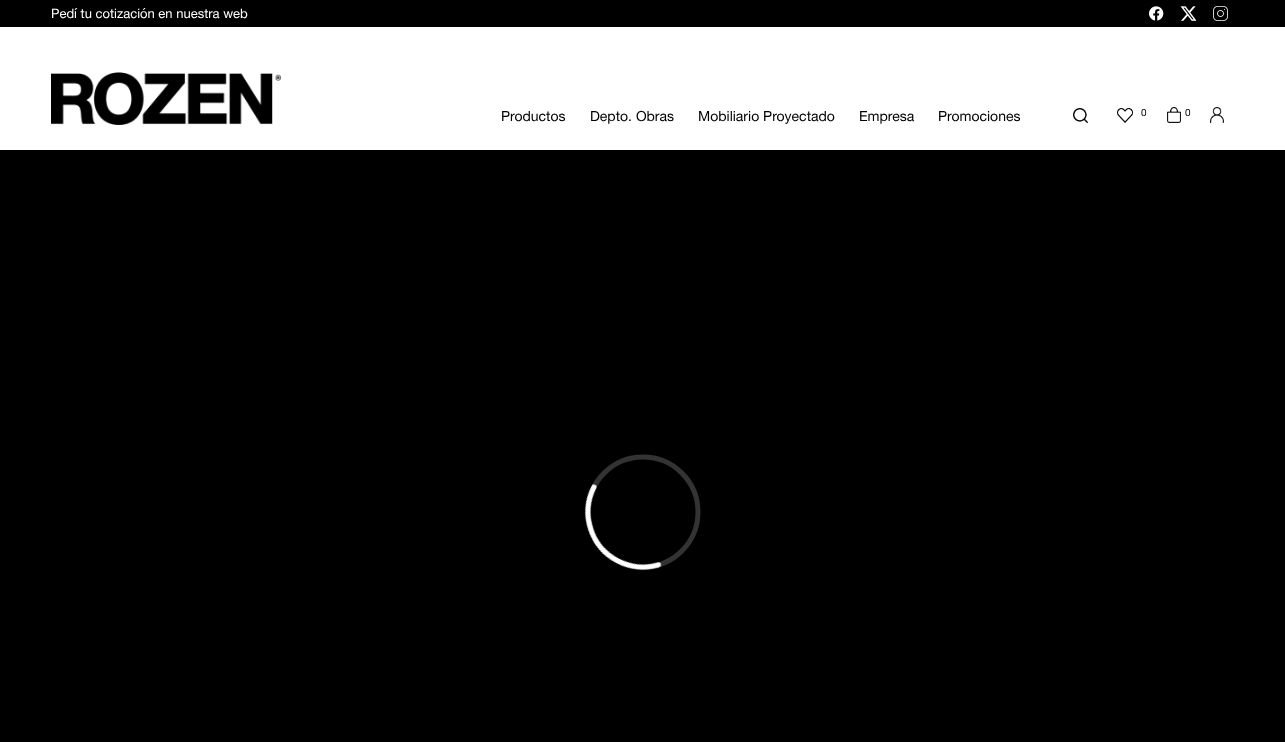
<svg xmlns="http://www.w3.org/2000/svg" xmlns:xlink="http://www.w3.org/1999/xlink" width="1285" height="742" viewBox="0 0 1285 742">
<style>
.cls-1{font:13px Helvetica Neue;fill:#ffffff}
.cls-2{font:14px Helvetica Neue;fill:#000000}
.cls-3{font:10px Helvetica Neue;fill:#000000}
</style>
<rect width="100%" height="100%" fill="#ffffff"/>
<rect fill="#000000" x="0" y="0" width="1285" height="27"/>
<image xlink:href="image0.png" x="1149" y="6" width="15" height="15"/>
<image xlink:href="image1.png" x="1180" y="6" width="16" height="15"/>
<image xlink:href="image2.png" x="1213" y="6" width="15" height="15"/>
<image xlink:href="image3.png" x="51" y="72" width="230" height="53"/>
<image xlink:href="image4.png" x="1073" y="108" width="15" height="15"/>
<image xlink:href="image5.png" x="1117" y="108" width="16" height="15"/>
<image xlink:href="image6.png" x="1167" y="107" width="14" height="16"/>
<image xlink:href="image7.png" x="1210" y="107" width="14" height="16"/>
<image xlink:href="image8.png" x="0" y="150" width="1285" height="592"/>
<text class="cls-1" x="51" y="18">Pedí tu cotización en nuestra web</text>
<text class="cls-2" x="501" y="121">Productos</text>
<text class="cls-2" x="590" y="121">Depto. Obras</text>
<text class="cls-2" x="698" y="121">Mobiliario Proyectado</text>
<text class="cls-2" x="859" y="121">Empresa</text>
<text class="cls-2" x="938" y="121">Promociones</text>
<text class="cls-3" x="1141" y="116">0</text>
<text class="cls-3" x="1185" y="116">0</text>
</svg>
